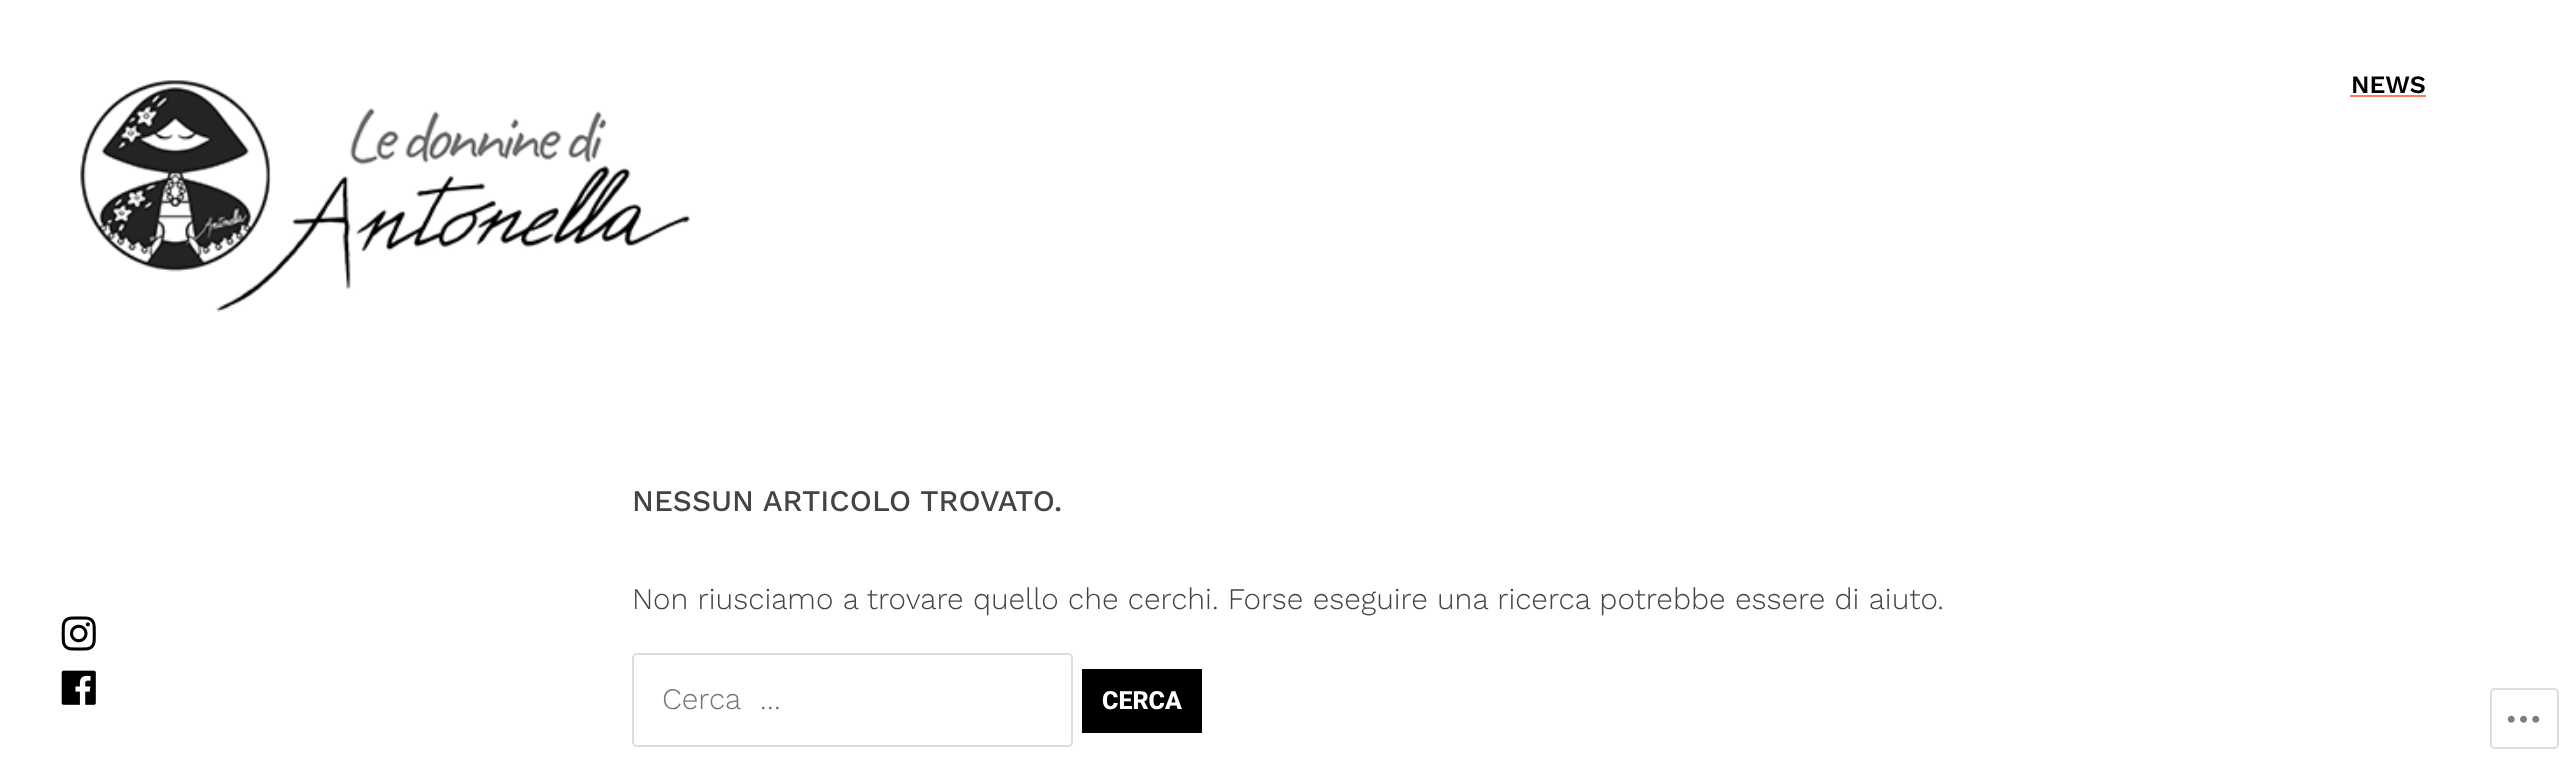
<svg xmlns="http://www.w3.org/2000/svg" xmlns:xlink="http://www.w3.org/1999/xlink" width="2576" height="765" viewBox="0 0 2576 765">
<style>
.cls-1{font:600 25px Work Sans;fill:#000000}
.cls-2{font:500 29.75px Work Sans;fill:#444444}
.cls-3{font:300 29.75px Work Sans;fill:#444444}
.cls-4{font:300 29.75px Work Sans;fill:#757575}
.cls-5{font:800 25px Roboto;fill:#ffffff}
</style>
<rect width="100%" height="100%" fill="#ffffff"/>
<image xlink:href="image0.png" x="80" y="80" width="610" height="232"/>
<rect fill="#ff7a5c" x="2350" y="95" width="76" height="2"/>
<image xlink:href="image1.png" x="61" y="616" width="35" height="35"/>
<image xlink:href="image2.png" x="61" y="670" width="35" height="35"/>
<rect fill="none" stroke="#dddddd" stroke-width="2" x="633" y="654" width="439" height="92" rx="4"/>
<rect fill="#000000" x="1082" y="669" width="120" height="64"/>
<rect fill="none" stroke="#dddddf" stroke-width="2" x="2491" y="689" width="67" height="59" rx="4"/>
<image xlink:href="image3.png" x="2507" y="715" width="33" height="8"/>
<text class="cls-1" x="2351" y="93">NEWS</text>
<text class="cls-2" x="632" y="511">NESSUN ARTICOLO TROVATO.</text>
<text class="cls-3" x="632" y="609">Non riusciamo a trovare quello che cerchi. Forse eseguire una ricerca potrebbe essere di aiuto.</text>
<text class="cls-4" x="662" y="709" word-spacing="10">Cerca …</text>
<text class="cls-5" x="1102" y="709">CERCA</text>
</svg>
